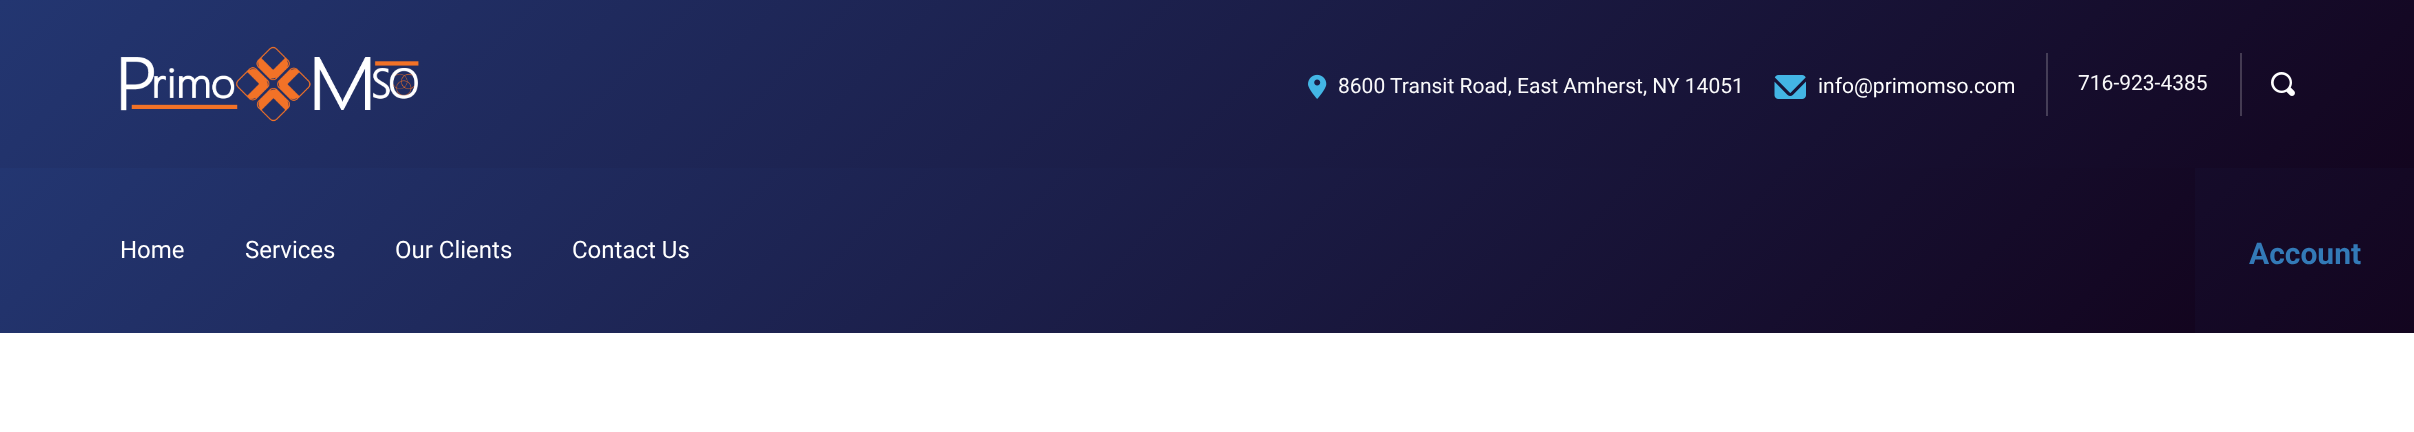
<svg xmlns="http://www.w3.org/2000/svg" xmlns:xlink="http://www.w3.org/1999/xlink" width="2414" height="432" viewBox="0 0 2414 432">
<style>
.cls-1{font:21px Roboto;fill:#f9f9fa}
.cls-2{font:21px Roboto;fill:#ffffff}
.cls-3{font:24px Roboto;fill:#ffffff}
.cls-4{font:bold 30px Roboto;fill:#337ab7}
</style>
<defs>
<linearGradient id="g1" gradientUnits="userSpaceOnUse" x1="1895" y1="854" x2="521" y2="-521"><stop offset="0" stop-color="#13051f"/><stop offset="1" stop-color="#233671"/></linearGradient>
<linearGradient id="g2" gradientUnits="userSpaceOnUse" x1="1853" y1="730" x2="562" y2="-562"><stop offset="0" stop-color="#13051f"/><stop offset="1" stop-color="#233671"/></linearGradient>
<linearGradient id="g3" gradientUnits="userSpaceOnUse" x1="1687" y1="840" x2="507" y2="-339"><stop offset="0" stop-color="#13051f"/><stop offset="1" stop-color="#233671"/></linearGradient>
</defs>
<rect width="100%" height="100%" fill="#ffffff"/>
<rect fill="url(#g1)" x="2195" y="168" width="219" height="165"/>
<rect fill="url(#g2)" x="0" y="0" width="2414" height="168"/>
<image xlink:href="image0.png" x="120" y="46" width="299" height="76"/>
<image xlink:href="image1.png" x="1308" y="74" width="19" height="25"/>
<image xlink:href="image2.png" x="1774" y="75" width="32" height="24"/>
<rect fill="#453e57" x="2046" y="53" width="2" height="63"/>
<rect fill="#443b52" x="2240" y="53" width="2" height="63"/>
<image xlink:href="image3.png" x="2271" y="72" width="24" height="24"/>
<rect fill="url(#g3)" x="0" y="168" width="2195" height="165"/>
<text class="cls-1" x="1338" y="93">8600 Transit Road, East Amherst, NY 14051</text>
<text class="cls-2" x="1818" y="93">info@primomso.com</text>
<text class="cls-1" x="2078" y="90">716-923-4385</text>
<text class="cls-3" x="120" y="258">Home</text>
<text class="cls-3" x="245" y="258">Services</text>
<text class="cls-3" x="395" y="258">Our Clients</text>
<text class="cls-3" x="572" y="258">Contact Us</text>
<text class="cls-4" x="2249" y="264">Account</text>
</svg>
